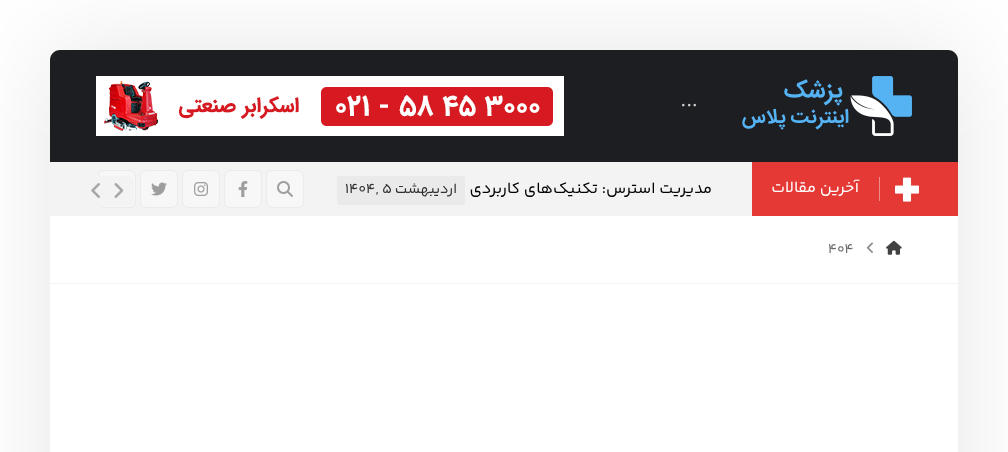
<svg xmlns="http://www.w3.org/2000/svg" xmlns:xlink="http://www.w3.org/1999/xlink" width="1008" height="452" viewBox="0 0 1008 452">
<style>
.cls-1{font:16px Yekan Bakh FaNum;direction:rtl;fill:#ffffff}
.cls-2{font:16px Yekan Bakh FaNum;direction:rtl;fill:#000000}
.cls-3{font:14.5px Yekan Bakh FaNum;direction:rtl;fill:#313131}
.cls-4{font:14.5px Yekan Bakh FaNum;fill:#313131}
.cls-5{font:14px Yekan Bakh FaNum;fill:#686868}
</style>
<rect width="100%" height="100%" fill="#ffffff"/>
<rect fill="#000000" fill-opacity="0.1" filter="blur(50px)" x="50" y="50" width="908" height="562" rx="10"/>
<rect fill="#ffffff" x="50" y="50" width="908" height="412" rx="10"/>
<path fill="#1d1e21" d="M60 50H948C953.5 50 958 54.5 958 60V162H50V60C50 54.5 54.5 50 60 50Z"/>
<image xlink:href="image0.png" x="742" y="76" width="170" height="60"/>
<image xlink:href="image1.png" x="682" y="103" width="14" height="4"/>
<image xlink:href="image2.png" x="96" y="76" width="468" height="60"/>
<rect fill="#f3f3f3" x="50" y="162" width="702" height="54"/>
<rect fill="#e53935" x="752" y="162" width="206" height="54"/>
<rect fill="#f08c8a" x="879" y="177" width="1" height="24"/>
<image xlink:href="image3.png" x="895" y="177" width="24" height="25"/>
<rect fill="#eaeaea" x="337" y="176" width="128" height="29" rx="2"/>
<rect fill="#f7f7f7" stroke="#ebebeb" x="98.5" y="170.5" width="37" height="37" rx="5.5"/>
<rect fill="#f3f3f3" x="82" y="176" width="30" height="30" rx="6"/>
<rect fill="#f3f3f3" x="104" y="176" width="30" height="30" rx="6"/>
<image xlink:href="image4.png" x="114" y="183" width="10" height="15"/>
<image xlink:href="image5.png" x="91" y="183" width="9" height="15"/>
<rect fill="#f7f7f7" stroke="#ebebeb" x="266.5" y="170.5" width="37" height="37" rx="5.5"/>
<image xlink:href="image6.png" x="277" y="181" width="16" height="16"/>
<rect fill="#f7f7f7" stroke="#ebebeb" x="224.5" y="170.5" width="37" height="37" rx="5.5"/>
<image xlink:href="image7.png" x="238" y="181" width="10" height="16"/>
<rect fill="#f7f7f7" stroke="#ebebeb" x="182.5" y="170.5" width="37" height="37" rx="5.5"/>
<image xlink:href="image8.png" x="194" y="182" width="14" height="14"/>
<rect fill="#f7f7f7" stroke="#ebebeb" x="140.5" y="170.5" width="37" height="37" rx="5.5"/>
<image xlink:href="image9.png" x="151" y="182" width="16" height="14"/>
<rect fill="#f4f4f4" x="50" y="283" width="908" height="1"/>
<image xlink:href="image10.png" x="886" y="240" width="16" height="15"/>
<image xlink:href="image11.png" x="866" y="242" width="7" height="11"/>
<text class="cls-1" x="859" y="192">آخرین مقالات</text>
<text class="cls-2" x="712" y="193">مدیریت استرس: تکنیک‌های کاربردی</text>
<text class="cls-3" x="457" y="193">اردیبهشت</text>
<text class="cls-4" x="345" y="193">۱۴۰۴, ۵</text>
<text class="cls-5" x="828" y="253">۴۰۴</text>
</svg>
